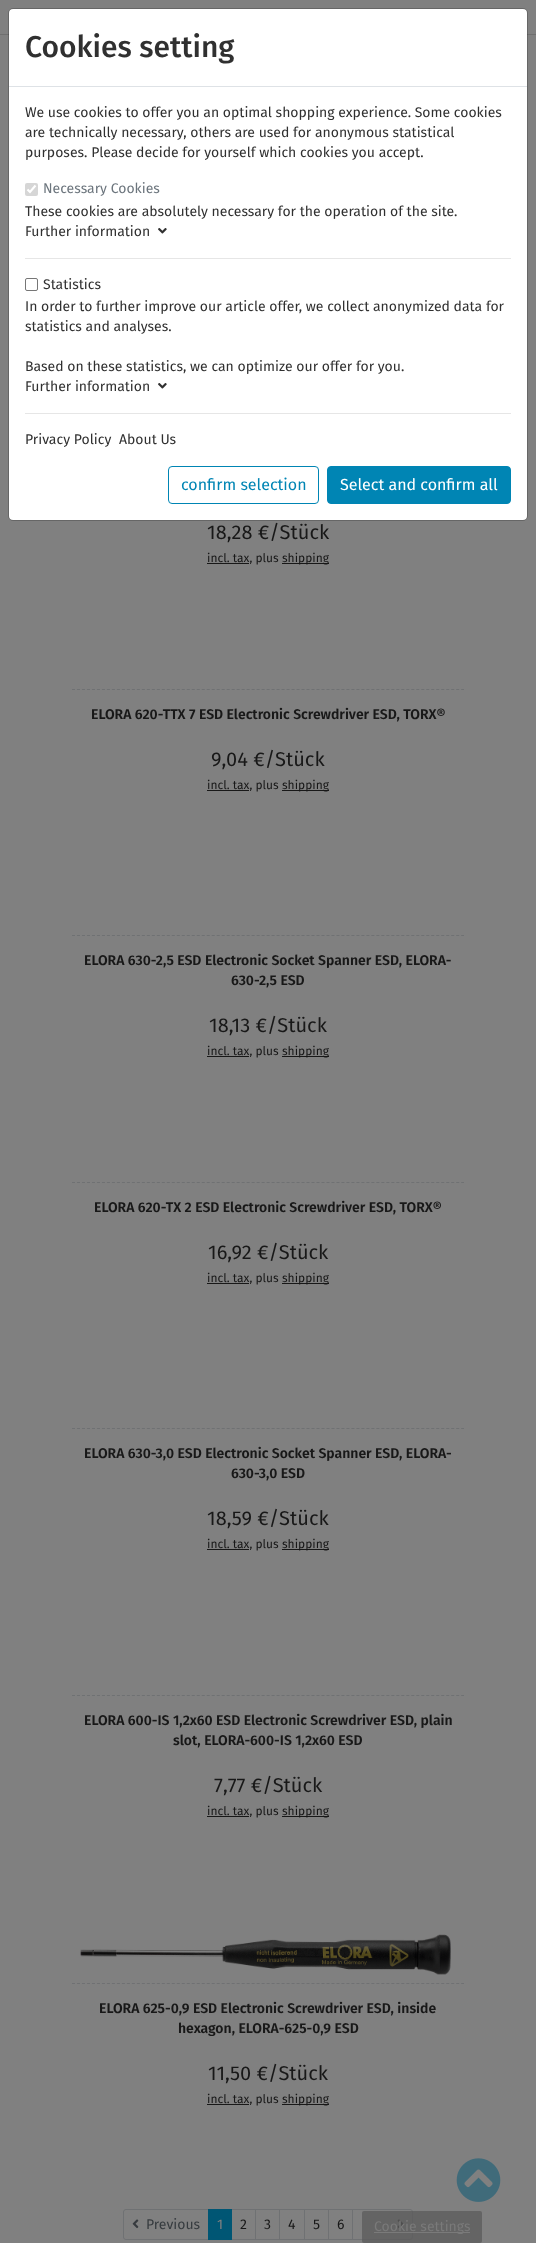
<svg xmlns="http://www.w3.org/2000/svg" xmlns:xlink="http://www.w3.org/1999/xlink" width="536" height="2243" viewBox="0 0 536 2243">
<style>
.cls-1{font:500 30px Fira Sans;fill:#303030}
.cls-2{font:14px Fira Sans;fill:#303030}
.cls-3{font:14px Fira Sans;fill:#6c757d}
.cls-4{font:16px Fira Sans;fill:#0085b4}
.cls-5{font:16px Fira Sans;fill:#ffffff}
.cls-6{font:20px Fira Sans;fill:#181818}
.cls-7{font:12px Fira Sans;fill:#181818}
.cls-8{font:600 14px Fira Sans;fill:#181818}
.cls-9{font:14px Fira Sans;fill:#363b3f}
.cls-10{font:14px Fira Sans;fill:#808080}
.cls-11{font:14px Fira Sans;fill:#181818}
.cls-12{font:14px Fira Sans;fill:#7a7a7a}
</style>
<rect width="100%" height="100%" fill="#808080"/>
<rect fill="#6f6f6f" x="0" y="34" width="536" height="1"/>
<rect fill="#ffffff" x="9" y="9" width="518" height="511" rx="4"/>
<rect fill="none" stroke="#000000" stroke-opacity="0.2" x="8.5" y="8.5" width="519" height="512" rx="4.5"/>
<rect fill="#dee2e6" x="9" y="86" width="518" height="1"/>
<rect fill="#d6d6d6" x="25" y="183" width="13" height="13" rx="2"/>
<path fill="none" stroke="#ffffff" stroke-width="2.1" d="M27.5 189.5L30 192L35.5 185.5"/>
<image xlink:href="image0.png" x="158" y="228" width="9" height="6"/>
<rect fill="#e6e6e6" x="25" y="258" width="486" height="1"/>
<rect fill="none" stroke="#767676" x="25.5" y="278.5" width="12" height="12" rx="1.5"/>
<image xlink:href="image0.png" x="158" y="383" width="9" height="6"/>
<rect fill="#e6e6e6" x="25" y="413" width="486" height="1"/>
<rect fill="none" stroke="#0085b4" x="168.5" y="466.5" width="150" height="37" rx="3.5"/>
<rect fill="#0085b4" stroke="#0085b4" x="327.5" y="466.5" width="183" height="37" rx="3.5"/>
<rect fill="#181818" x="207" y="563" width="42" height="1"/>
<rect fill="#181818" x="282" y="563" width="47" height="1"/>
<path fill="none" stroke="#6f7173" stroke-dasharray="3 1.99" d="M72 689.5H464"/>
<rect fill="#181818" x="207" y="790" width="42" height="1"/>
<rect fill="#181818" x="282" y="790" width="47" height="1"/>
<path fill="none" stroke="#6f7173" stroke-dasharray="3 1.99" d="M72 935.5H464"/>
<rect fill="#181818" x="207" y="1056" width="42" height="1"/>
<rect fill="#181818" x="282" y="1056" width="47" height="1"/>
<path fill="none" stroke="#6f7173" stroke-dasharray="3 1.99" d="M72 1182.5H464"/>
<rect fill="#181818" x="207" y="1283" width="42" height="1"/>
<rect fill="#181818" x="282" y="1283" width="47" height="1"/>
<path fill="none" stroke="#6f7173" stroke-dasharray="3 1.99" d="M72 1428.5H464"/>
<rect fill="#181818" x="207" y="1549" width="42" height="1"/>
<rect fill="#181818" x="282" y="1549" width="47" height="1"/>
<path fill="none" stroke="#6f7173" stroke-dasharray="3 1.99" d="M72 1695.5H464"/>
<rect fill="#181818" x="207" y="1816" width="42" height="1"/>
<rect fill="#181818" x="282" y="1816" width="47" height="1"/>
<path fill="none" stroke="#6f7173" stroke-dasharray="3 1.99" d="M72 1983.5H464"/>
<image xlink:href="image1.png" x="80" y="1934" width="371" height="41"/>
<rect fill="#181818" x="207" y="2104" width="42" height="1"/>
<rect fill="#181818" x="282" y="2104" width="47" height="1"/>
<path fill="none" stroke="#6f7173" d="M126 2209.5H208.5V2239.5H126C124.5 2239.5 123.5 2238.5 123.5 2237V2212C123.5 2210.5 124.5 2209.5 126 2209.5Z"/>
<image xlink:href="image2.png" x="132" y="2219" width="7" height="10"/>
<rect fill="none" stroke="#6f7173" x="231.5" y="2209.5" width="24" height="30"/>
<rect fill="#005674" x="208" y="2209" width="24" height="31"/>
<rect fill="none" stroke="#6f7173" x="255.5" y="2209.5" width="24" height="30"/>
<rect fill="none" stroke="#6f7173" x="279.5" y="2209.5" width="25" height="30"/>
<rect fill="none" stroke="#6f7173" x="304.5" y="2209.5" width="24" height="30"/>
<rect fill="none" stroke="#6f7173" x="328.5" y="2209.5" width="24" height="30"/>
<path fill="#808080" stroke="#6f7173" d="M352.5 2209.5H410C411.5 2209.5 412.5 2210.5 412.5 2212V2237C412.5 2238.5 411.5 2239.5 410 2239.5H352.5Z"/>
<image xlink:href="image3.png" x="397" y="2219" width="7" height="10"/>
<image xlink:href="image4.png" x="456" y="2158" width="45" height="44"/>
<rect fill="#5d5d5d" fill-opacity="0.8" x="362" y="2211" width="120" height="32" rx="2"/>
<rect fill="#808080" fill-opacity="0.8" x="374" y="2232" width="96" height="1"/>
<text class="cls-1" x="25" y="57">Cookies setting</text>
<text class="cls-2"><tspan x="25" y="117">We use cookies to offer you an optimal shopping experience. Some cookies</tspan><tspan x="25" y="137">are technically necessary, others are used for anonymous statistical</tspan><tspan x="25" y="157">purposes. Please decide for yourself which cookies you accept.</tspan></text>
<text class="cls-3" x="43" y="193">Necessary Cookies</text>
<text class="cls-2"><tspan x="25" y="216">These cookies are absolutely necessary for the operation of the site.</tspan><tspan x="25" y="236">Further information</tspan></text>
<text class="cls-2" x="43" y="289">Statistics</text>
<text class="cls-2"><tspan x="25" y="311">In order to further improve our article offer, we collect anonymized data for</tspan><tspan x="25" y="331">statistics and analyses.</tspan></text>
<text class="cls-2"><tspan x="25" y="371">Based on these statistics, we can optimize our offer for you.</tspan><tspan x="25" y="391">Further information</tspan></text>
<text class="cls-2" x="25" y="444">Privacy Policy</text>
<text class="cls-2" x="119" y="444">About Us</text>
<text class="cls-4" x="181" y="490">confirm selection</text>
<text class="cls-5" x="340" y="490">Select and confirm all</text>
<text class="cls-6" x="207" y="539">18,28 €/Stück</text>
<text class="cls-7" x="207" y="562">incl. tax, plus</text>
<text class="cls-7" x="282" y="562">shipping</text>
<text class="cls-8" x="91" y="719">ELORA 620-TTX 7 ESD Electronic Screwdriver ESD, TORX®</text>
<text class="cls-6" x="211" y="766">9,04 €/Stück</text>
<text class="cls-7" x="207" y="789">incl. tax, plus</text>
<text class="cls-7" x="282" y="789">shipping</text>
<text class="cls-8" x="84" y="965">ELORA 630-2,5 ESD Electronic Socket Spanner ESD, ELORA-</text>
<text class="cls-8" x="231" y="985">630-2,5 ESD</text>
<text class="cls-6" x="209" y="1032">18,13 €/Stück</text>
<text class="cls-7" x="207" y="1055">incl. tax, plus</text>
<text class="cls-7" x="282" y="1055">shipping</text>
<text class="cls-8" x="94" y="1212">ELORA 620-TX 2 ESD Electronic Screwdriver ESD, TORX®</text>
<text class="cls-6" x="208" y="1259">16,92 €/Stück</text>
<text class="cls-7" x="207" y="1282">incl. tax, plus</text>
<text class="cls-7" x="282" y="1282">shipping</text>
<text class="cls-8" x="84" y="1458">ELORA 630-3,0 ESD Electronic Socket Spanner ESD, ELORA-</text>
<text class="cls-8" x="231" y="1478">630-3,0 ESD</text>
<text class="cls-6" x="207" y="1525">18,59 €/Stück</text>
<text class="cls-7" x="207" y="1548">incl. tax, plus</text>
<text class="cls-7" x="282" y="1548">shipping</text>
<text class="cls-8" x="84" y="1725">ELORA 600-IS 1,2x60 ESD Electronic Screwdriver ESD, plain</text>
<text class="cls-8" x="173" y="1745">slot, ELORA-600-IS 1,2x60 ESD</text>
<text class="cls-6" x="214" y="1792">7,77 €/Stück</text>
<text class="cls-7" x="207" y="1815">incl. tax, plus</text>
<text class="cls-7" x="282" y="1815">shipping</text>
<text class="cls-8" x="99" y="2013">ELORA 625-0,9 ESD Electronic Screwdriver ESD, inside</text>
<text class="cls-8" x="178" y="2033">hexagon, ELORA-625-0,9 ESD</text>
<text class="cls-6" x="208" y="2080">11,50 €/Stück</text>
<text class="cls-7" x="207" y="2103">incl. tax, plus</text>
<text class="cls-7" x="282" y="2103">shipping</text>
<text class="cls-9" x="146" y="2229">Previous</text>
<text class="cls-10" x="217" y="2229">1</text>
<text class="cls-11" x="240" y="2229">2</text>
<text class="cls-11" x="264" y="2229">3</text>
<text class="cls-11" x="288" y="2229">4</text>
<text class="cls-11" x="313" y="2229">5</text>
<text class="cls-11" x="337" y="2229">6</text>
<text class="cls-12" x="374" y="2231">Cookie settings</text>
</svg>
